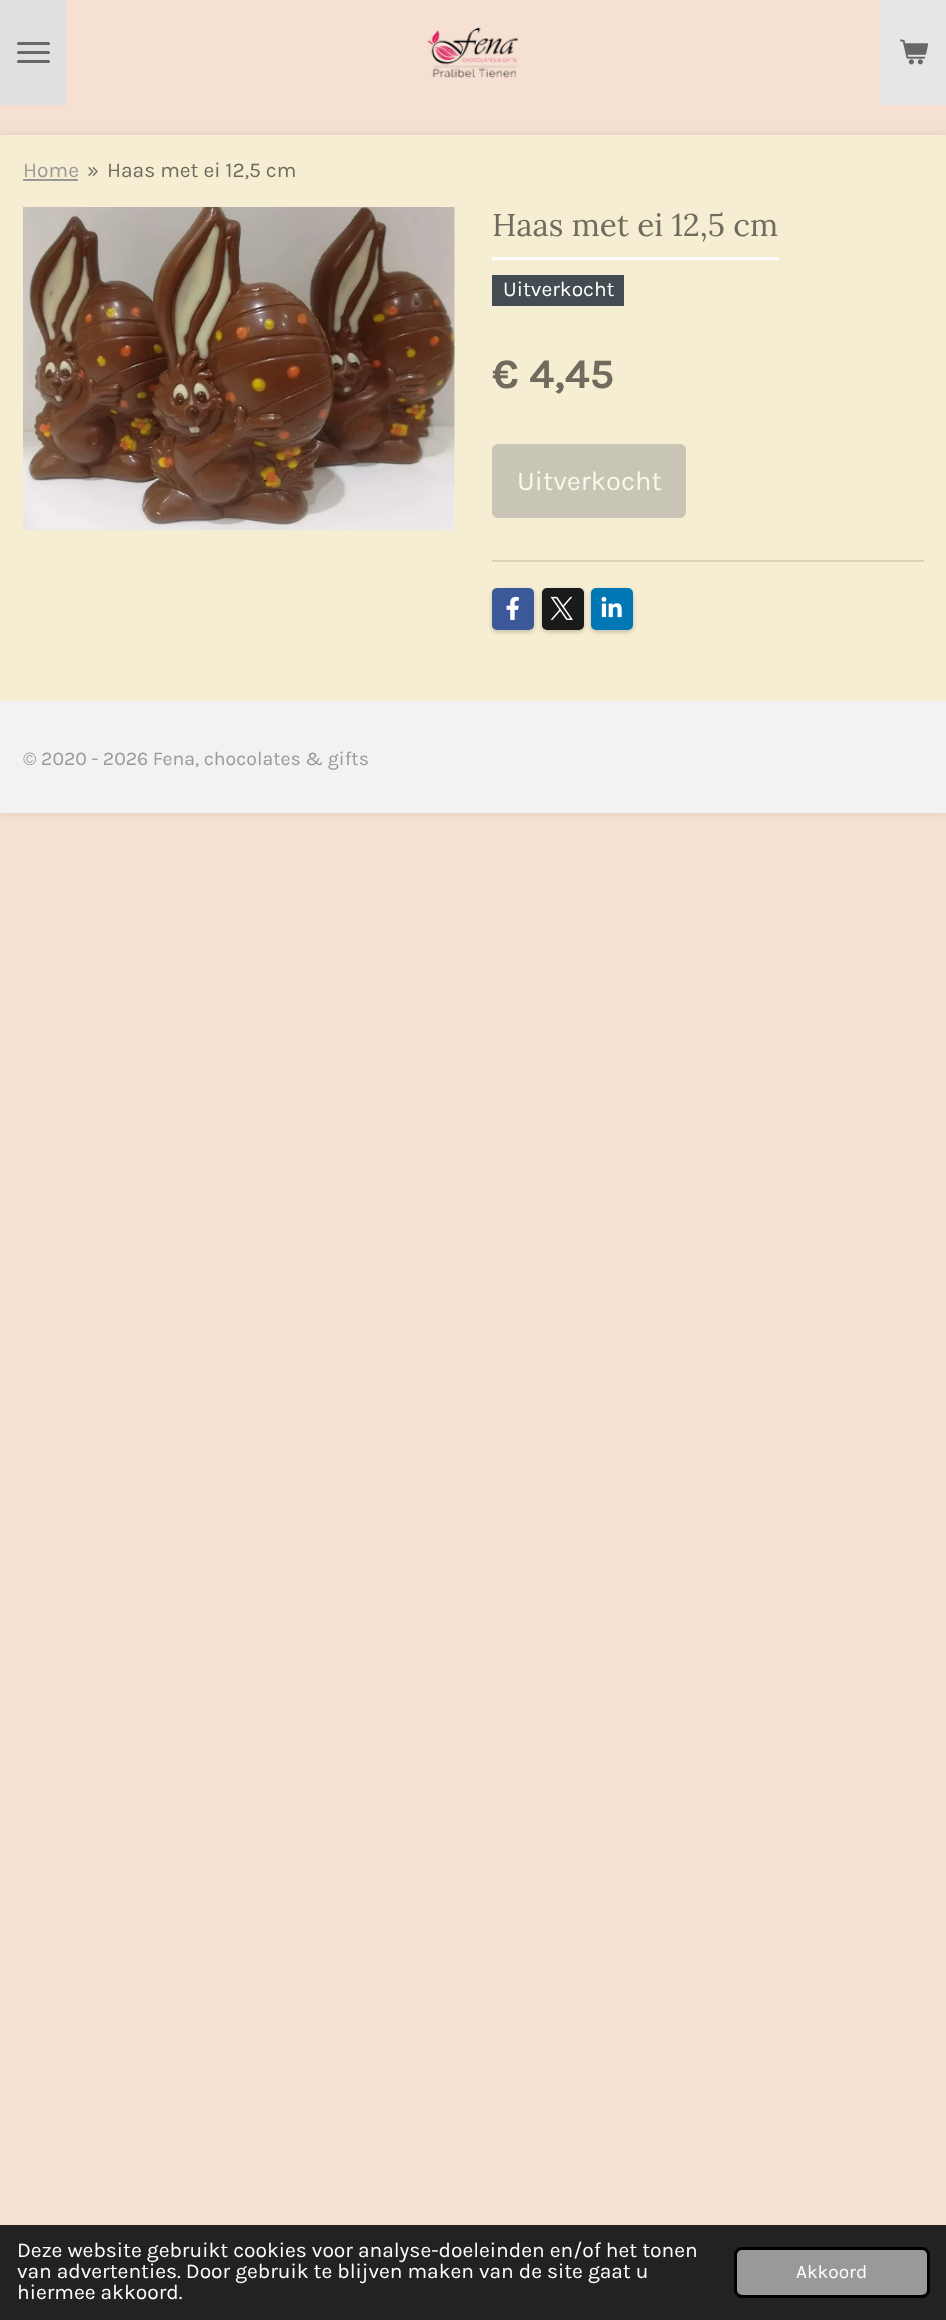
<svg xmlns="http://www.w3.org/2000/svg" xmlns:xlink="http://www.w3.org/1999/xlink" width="946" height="2320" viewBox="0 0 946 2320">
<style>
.cls-1{font:21px Karla;fill:#999999}
.cls-2{font:21px Karla;fill:#6f6b5e}
.cls-3{font:31.5px Lora;fill:#6f6b5e}
.cls-4{font:21px Karla;fill:#ffffff}
.cls-5{font:bold 42px Karla;fill:#6f6b5e}
.cls-6{font:27.25px Karla;fill:#fbf7e9}
.cls-7{font:19.5px Karla;fill:#999999}
.cls-8{font:19px Karla;fill:#ffffff}
</style>
<rect width="100%" height="100%" fill="#f6e0d2"/>
<rect fill="#e0e0e0" x="0" y="0" width="66" height="105"/>
<rect fill="#676767" x="17" y="51" width="33" height="3" rx="1.5"/>
<rect fill="#676767" x="17" y="42" width="33" height="3" rx="1.5"/>
<rect fill="#676767" x="17" y="60" width="33" height="3" rx="1.5"/>
<image xlink:href="image0.png" x="427" y="27" width="91" height="51"/>
<rect fill="#e6e6e6" x="881" y="0" width="65" height="105"/>
<image xlink:href="image1.png" x="900" y="39" width="29" height="26"/>
<rect fill="#000000" fill-opacity="0.1" filter="blur(4px)" x="0" y="135" width="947" height="678"/>
<rect fill="#f6eed2" x="0" y="135" width="946" height="566"/>
<rect fill="#999999" x="23" y="179" width="55" height="2"/>
<image xlink:href="image2.png" x="23" y="207" width="432" height="323"/>
<rect fill="#ffffff" x="492" y="257" width="287" height="3"/>
<rect fill="#424c51" x="492" y="275" width="132" height="31"/>
<rect fill="#c8c4b6" x="492" y="444" width="194" height="74" rx="6"/>
<rect fill="#dbd4bb" x="492" y="560" width="432" height="2"/>
<rect fill="#000000" fill-opacity="0.2" filter="blur(2px)" x="492" y="590" width="42" height="42" rx="5"/>
<rect fill="#3b5998" x="492" y="588" width="42" height="42" rx="5"/>
<image xlink:href="image3.png" x="506" y="596" width="13" height="24"/>
<rect fill="#000000" fill-opacity="0.2" filter="blur(2px)" x="542" y="590" width="42" height="42" rx="5"/>
<rect fill="#1a1a1a" x="542" y="588" width="42" height="42" rx="5"/>
<image xlink:href="image4.png" x="550" y="596" width="23" height="24"/>
<rect fill="#000000" fill-opacity="0.2" filter="blur(2px)" x="591" y="590" width="42" height="42" rx="5"/>
<rect fill="#0077b5" x="591" y="588" width="42" height="42" rx="5"/>
<image xlink:href="image5.png" x="601" y="596" width="21" height="22"/>
<rect fill="#f2f2f2" x="0" y="701" width="946" height="112"/>
<rect fill="#222222" x="0" y="2225" width="946" height="95"/>
<rect fill="#999999" stroke="#000000" stroke-width="3" x="735.5" y="2248.5" width="193" height="48" rx="6.5"/>
<text class="cls-1" x="23" y="177">Home</text>
<text class="cls-2" x="87" y="177">»</text>
<text class="cls-2" x="107" y="177">Haas met ei 12,5 cm</text>
<text class="cls-3" x="492" y="236">Haas met ei 12,5 cm</text>
<text class="cls-4" x="503" y="296">Uitverkocht</text>
<text class="cls-5" x="492" y="388">€ 4,45</text>
<text class="cls-6" x="517" y="490">Uitverkocht</text>
<text class="cls-7" x="23" y="765">© 2020 - 2026 Fena, chocolates &amp; gifts</text>
<text class="cls-4"><tspan x="17" y="2257">Deze website gebruikt cookies voor analyse-doeleinden en/of het tonen</tspan><tspan x="17" y="2278">van advertenties. Door gebruik te blijven maken van de site gaat u</tspan><tspan x="17" y="2299">hiermee akkoord.</tspan></text>
<text class="cls-8" x="796" y="2278">Akkoord</text>
</svg>
